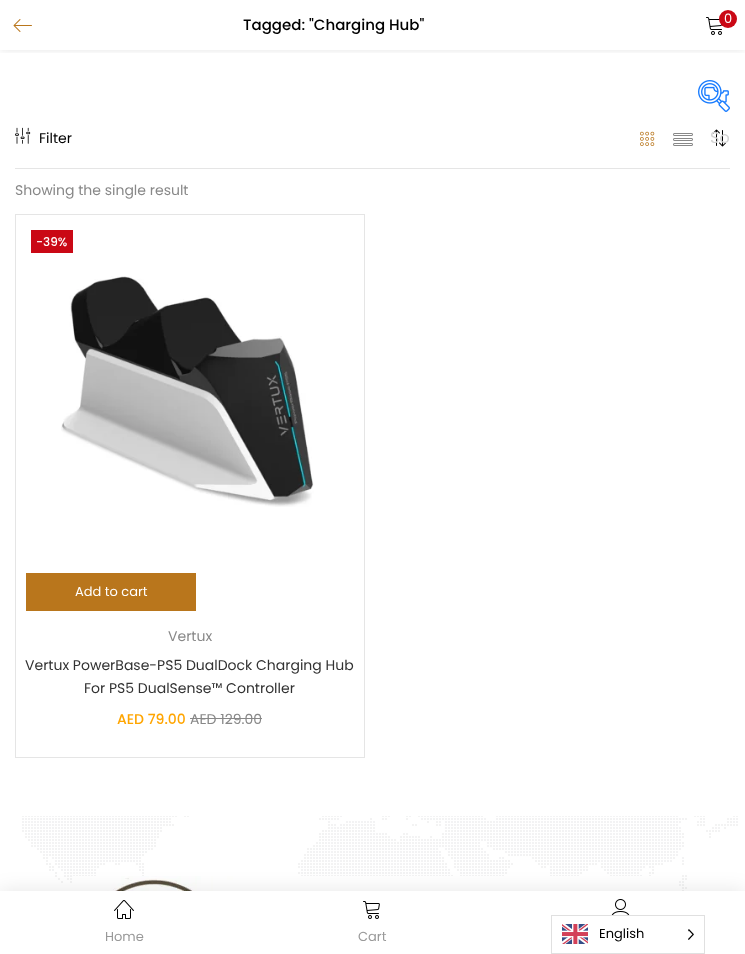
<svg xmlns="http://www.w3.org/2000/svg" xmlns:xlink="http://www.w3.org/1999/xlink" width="745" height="954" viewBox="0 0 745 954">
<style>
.cls-1{font:500 15px Poppins;fill:#000000}
.cls-2{font:13px Poppins;fill:#ffffff}
.cls-3{font:14px Poppins;fill:#000000}
.cls-4{font:16px Poppins;fill:#d4d4d4}
.cls-5{font:14px Poppins;fill:#888888}
.cls-6{font:500 12px Poppins;fill:#ffffff}
.cls-7{font:14px Poppins;fill:#323232}
.cls-8{font:500 14px Poppins;fill:#ffa500}
.cls-9{font:13px Poppins;fill:#999999}
.cls-10{font:13px Poppins;fill:#000000}
</style>
<defs>
<clipPath id="clip1"><rect x="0" y="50" width="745" height="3"/></clipPath>
</defs>
<rect width="100%" height="100%" fill="#ffffff"/>
<g clip-path="url(#clip1)">
<rect fill="#000000" fill-opacity="0.1" filter="blur(4px)" x="0" y="0" width="745" height="50"/>
</g>
<image xlink:href="image0.png" x="13" y="19" width="19" height="13"/>
<image xlink:href="image1.png" x="706" y="17" width="16" height="18"/>
<circle fill="#ca0815" cx="728" cy="19" r="9"/>
<image xlink:href="image2.png" x="698" y="80" width="32" height="32"/>
<image xlink:href="image3.png" x="15" y="127" width="16" height="17"/>
<image xlink:href="image4.png" x="640" y="131" width="15" height="15"/>
<image xlink:href="image5.png" x="673" y="133" width="20" height="13"/>
<image xlink:href="image6.png" x="713" y="129" width="13" height="18"/>
<rect fill="#e5e5e5" x="15" y="168" width="715" height="1"/>
<rect fill="none" stroke="#e5e5e5" x="15.5" y="214.5" width="349" height="543"/>
<rect fill="#ca0815" x="31" y="230" width="42" height="23"/>
<rect fill="#888888" x="190" y="718" width="72" height="1"/>
<image xlink:href="image7.png" x="61" y="276" width="253" height="231"/>
<rect fill="#b9761c" x="26" y="573" width="170" height="38"/>
<image xlink:href="image8.png" x="22" y="816" width="716" height="75"/>
<image xlink:href="image9.png" x="73" y="876" width="599" height="15"/>
<rect fill="#000000" fill-opacity="0.1" filter="blur(10px)" x="0" y="891" width="745" height="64"/>
<rect fill="#ffffff" x="0" y="891" width="745" height="63"/>
<image xlink:href="image10.png" x="611" y="899" width="19" height="16"/>
<image xlink:href="image11.png" x="114" y="900" width="20" height="19"/>
<image xlink:href="image12.png" x="363" y="901" width="17" height="18"/>
<rect fill="none" stroke="#e0e0e0" x="551.5" y="915.5" width="153" height="38"/>
<image xlink:href="image13.png" x="562" y="924" width="26" height="20"/>
<image xlink:href="image14.png" x="688" y="929" width="6" height="11"/>
<text class="cls-1" x="243" y="30">Tagged: "Charging Hub"</text>
<text class="cls-2" x="724" y="23">0</text>
<text class="cls-3" x="39" y="143">Filter</text>
<text class="cls-4" x="710" y="143">So</text>
<text class="cls-5" x="15" y="195">Showing the single result</text>
<text class="cls-6" x="36" y="246">-39%</text>
<text class="cls-5" x="168" y="641">Vertux</text>
<text class="cls-7" x="25" y="670">Vertux PowerBase-PS5 DualDock Charging Hub</text>
<text class="cls-7" x="84" y="693">For PS5 DualSense™ Controller</text>
<text class="cls-8" x="117" y="724">AED 79.00</text>
<text class="cls-5" x="190" y="724">AED 129.00</text>
<text class="cls-2" x="75" y="596">Add to cart</text>
<text class="cls-9" x="105" y="941">Home</text>
<text class="cls-9" x="358" y="941">Cart</text>
<text class="cls-10" x="599" y="938">English</text>
</svg>
